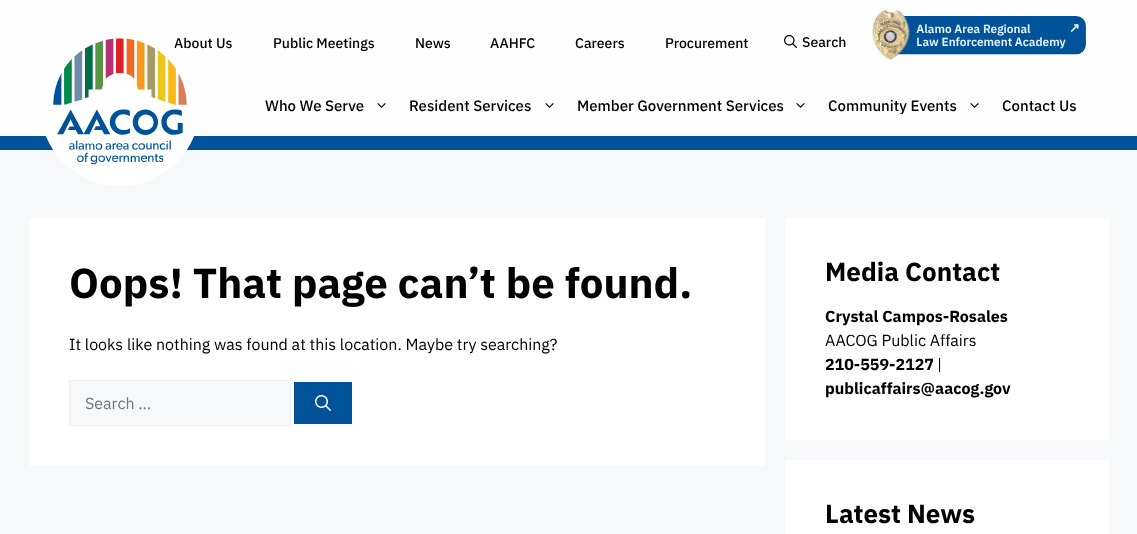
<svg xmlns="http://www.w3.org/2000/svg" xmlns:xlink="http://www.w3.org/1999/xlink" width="1137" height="534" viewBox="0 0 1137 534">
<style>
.cls-1{font:500 14px IBM Plex Sans;fill:#000000}
.cls-2{font:500 15px IBM Plex Sans;fill:#000000}
.cls-3{font:bold 42px IBM Plex Sans;fill:#000000}
.cls-4{font:16px IBM Plex Sans;fill:#000000}
.cls-5{font:16px IBM Plex Sans;fill:#757575}
.cls-6{font:bold 26px IBM Plex Sans;fill:#000000}
.cls-7{font:bold 16px IBM Plex Sans;fill:#000000}
</style>
<rect width="100%" height="100%" fill="#f7f8f9"/>
<rect fill="#fefefe" x="0" y="0" width="1137" height="136"/>
<image xlink:href="image0.png" x="784" y="35" width="13" height="13"/>
<image xlink:href="image1.png" x="872" y="10" width="214" height="50"/>
<rect fill="#005399" x="0" y="136" width="1137" height="14"/>
<image xlink:href="image3.png" x="377" y="103" width="9" height="5"/>
<image xlink:href="image3.png" x="545" y="103" width="9" height="5"/>
<image xlink:href="image3.png" x="796" y="103" width="9" height="5"/>
<image xlink:href="image3.png" x="970" y="103" width="9" height="5"/>
<rect fill="#ffffff" x="29" y="218" width="736" height="248"/>
<rect fill="#f7f8f9" stroke="#f0f0f0" x="69.5" y="380.5" width="221" height="45"/>
<rect fill="#005399" x="294" y="382" width="58" height="42"/>
<image xlink:href="image4.png" x="315" y="395" width="16" height="16"/>
<rect fill="#ffffff" x="785" y="218" width="324" height="222"/>
<rect fill="#ffffff" x="785" y="460" width="324" height="74"/>
<text class="cls-1" x="174" y="48">About Us</text>
<text class="cls-1" x="273" y="48">Public Meetings</text>
<text class="cls-1" x="415" y="48">News</text>
<text class="cls-1" x="490" y="48">AAHFC</text>
<text class="cls-1" x="575" y="48">Careers</text>
<text class="cls-1" x="665" y="48">Procurement</text>
<text class="cls-1" x="802" y="47">Search</text>
<image xlink:href="image2.png" x="46" y="38" width="148" height="148"/>
<text class="cls-2" x="265" y="111">Who We Serve</text>
<text class="cls-2" x="409" y="111">Resident Services</text>
<text class="cls-2" x="577" y="111">Member Government Services</text>
<text class="cls-2" x="828" y="111">Community Events</text>
<text class="cls-2" x="1002" y="111">Contact Us</text>
<text class="cls-3" x="69" y="298">Oops! That page can’t be found.</text>
<text class="cls-4" x="69" y="350">It looks like nothing was found at this location. Maybe try searching?</text>
<text class="cls-5" x="85" y="409">Search …</text>
<text class="cls-6" x="825" y="281">Media Contact</text>
<text class="cls-7" x="825" y="322">Crystal Campos-Rosales</text>
<text class="cls-4" x="825" y="346">AACOG Public Affairs</text>
<text class="cls-7" x="825" y="370">210-559-2127</text>
<text class="cls-4" x="937" y="370">|</text>
<text class="cls-7" x="825" y="394">publicaffairs@aacog.gov</text>
<text class="cls-6" x="825" y="523">Latest News</text>
</svg>
